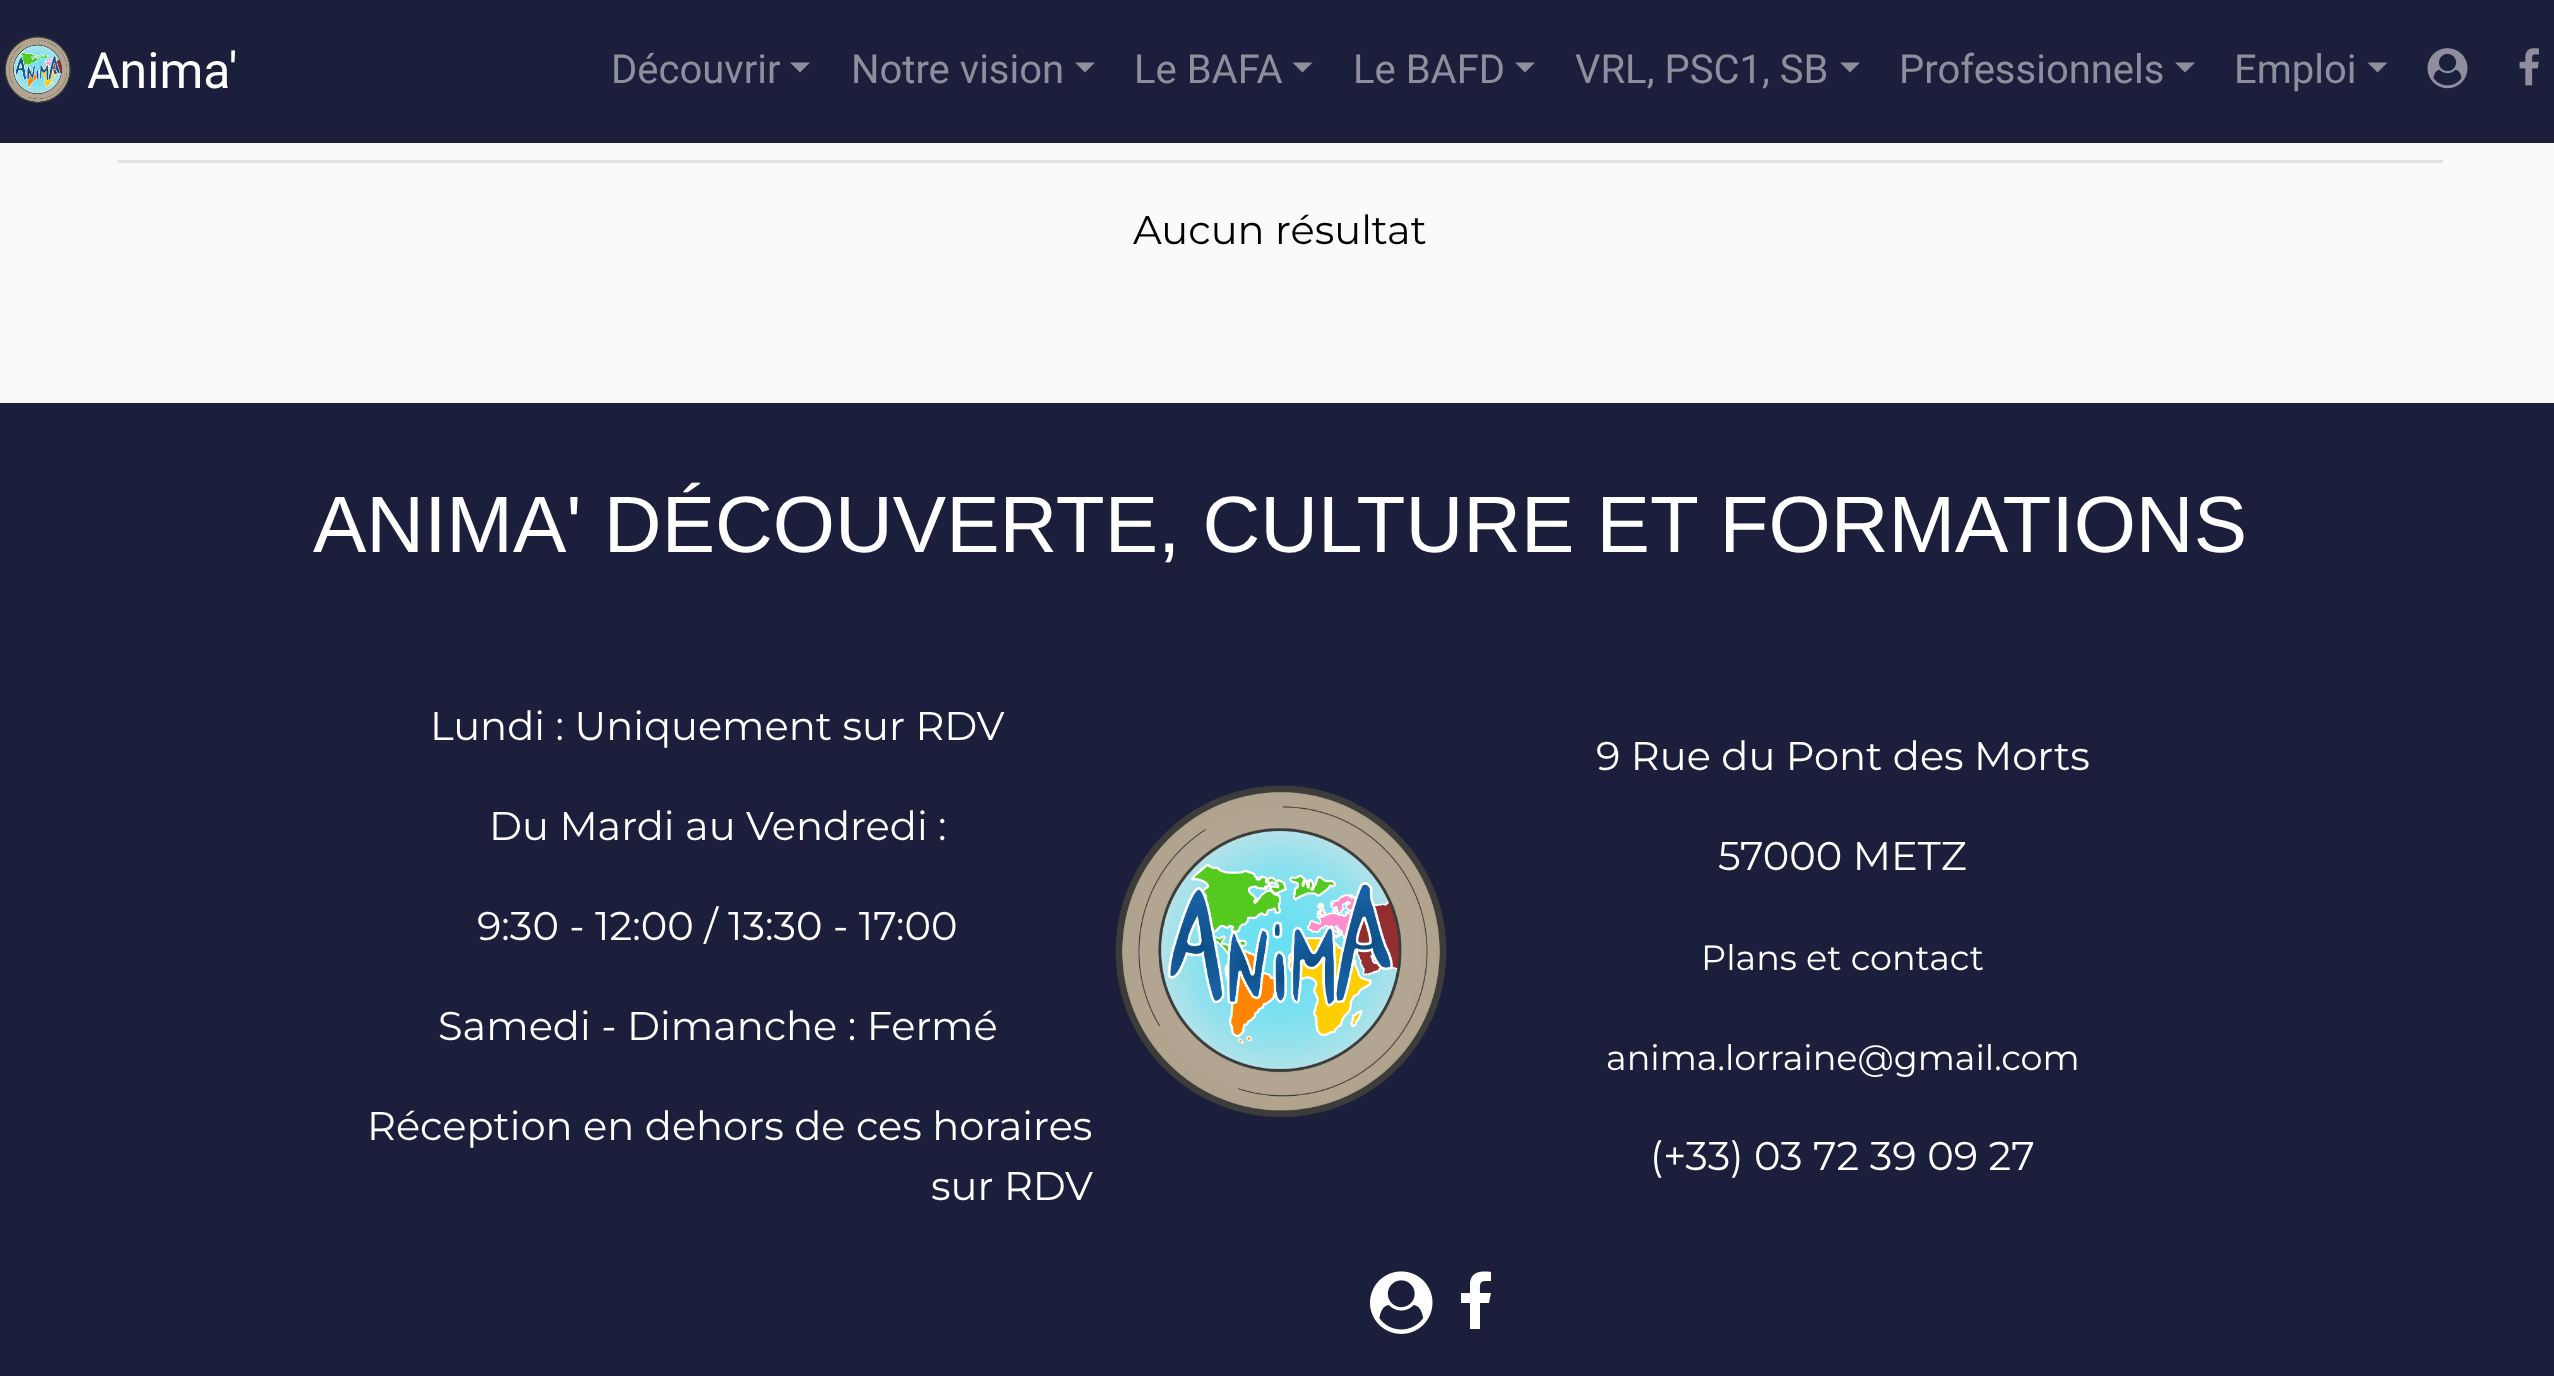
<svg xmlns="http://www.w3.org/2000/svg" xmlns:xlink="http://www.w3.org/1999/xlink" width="2554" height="1376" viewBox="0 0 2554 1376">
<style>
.cls-1{font:50px Roboto;fill:#ffffff}
.cls-2{font:40px Roboto;fill:#8d8f9d}
.cls-3{font:40px Montserrat;fill:#000000}
.cls-4{font:80px Liberation Sans;fill:#ffffff}
.cls-5{font:40px Montserrat;fill:#ffffff}
.cls-6{font:35px Montserrat;fill:#ffffff}
</style>
<rect width="100%" height="100%" fill="#fafafa"/>
<rect fill="#1b1f3b" x="0" y="0" width="2554" height="143"/>
<image xlink:href="image0.png" x="4" y="36" width="67" height="67"/>
<path fill="#8d8f9d" d="M790 62.5H810L800 72.5Z"/>
<path fill="#8d8f9d" d="M1075 62.5H1095L1085 72.5Z"/>
<path fill="#8d8f9d" d="M1292.5 62.5H1312.5L1302.5 72.5Z"/>
<path fill="#8d8f9d" d="M1515 62.5H1535L1525 72.5Z"/>
<path fill="#8d8f9d" d="M1840 62.5H1860L1850 72.5Z"/>
<path fill="#8d8f9d" d="M2175 62.5H2195L2185 72.5Z"/>
<path fill="#8d8f9d" d="M2367.5 62.5H2387.5L2377.5 72.5Z"/>
<image xlink:href="image1.png" x="2427" y="48" width="41" height="41"/>
<image xlink:href="image2.png" x="2519" y="48" width="20" height="38"/>
<rect fill="#e1e1e1" x="118" y="160" width="2325" height="3"/>
<rect fill="#1b1f3b" x="0" y="403" width="2554" height="973"/>
<image xlink:href="image3.png" x="1115" y="785" width="332" height="333"/>
<image xlink:href="image4.png" x="1370" y="1271" width="63" height="63"/>
<path fill="#ffffff" d="M1491 1272V1281C1479 1281 1480 1281 1480 1293H1491L1489 1303H1480V1329H1470V1303H1461V1293H1470V1282C1472 1271 1482 1271 1491 1272Z"/>
<text class="cls-1" x="87" y="88">Anima'</text>
<text class="cls-2" x="611" y="83">Découvrir</text>
<text class="cls-2" x="851" y="83">Notre vision</text>
<text class="cls-2" x="1134" y="83">Le BAFA</text>
<text class="cls-2" x="1353" y="83">Le BAFD</text>
<text class="cls-2" x="1575" y="83">VRL, PSC1, SB</text>
<text class="cls-2" x="1899" y="83">Professionnels</text>
<text class="cls-2" x="2234" y="83">Emploi</text>
<text class="cls-3" x="1133" y="244">Aucun résultat</text>
<text class="cls-4" x="313" y="552">ANIMA' DÉCOUVERTE, CULTURE ET FORMATIONS</text>
<text class="cls-5" x="430" y="740">Lundi : Uniquement sur RDV</text>
<text class="cls-5" x="489" y="840">Du Mardi au Vendredi :</text>
<text class="cls-5" x="477" y="940">9:30 - 12:00 / 13:30 - 17:00</text>
<text class="cls-5" x="438" y="1040">Samedi - Dimanche : Fermé</text>
<text class="cls-5" x="367" y="1140">Réception en dehors de ces horaires</text>
<text class="cls-5" x="931" y="1200">sur RDV</text>
<text class="cls-5" x="1596" y="770">9 Rue du Pont des Morts</text>
<text class="cls-5" x="1718" y="870">57000 METZ</text>
<text class="cls-6" x="1701" y="970">Plans et contact</text>
<text class="cls-6" x="1606" y="1070">anima.lorraine@gmail.com</text>
<text class="cls-5" x="1650" y="1170">(+33) 03 72 39 09 27</text>
</svg>
